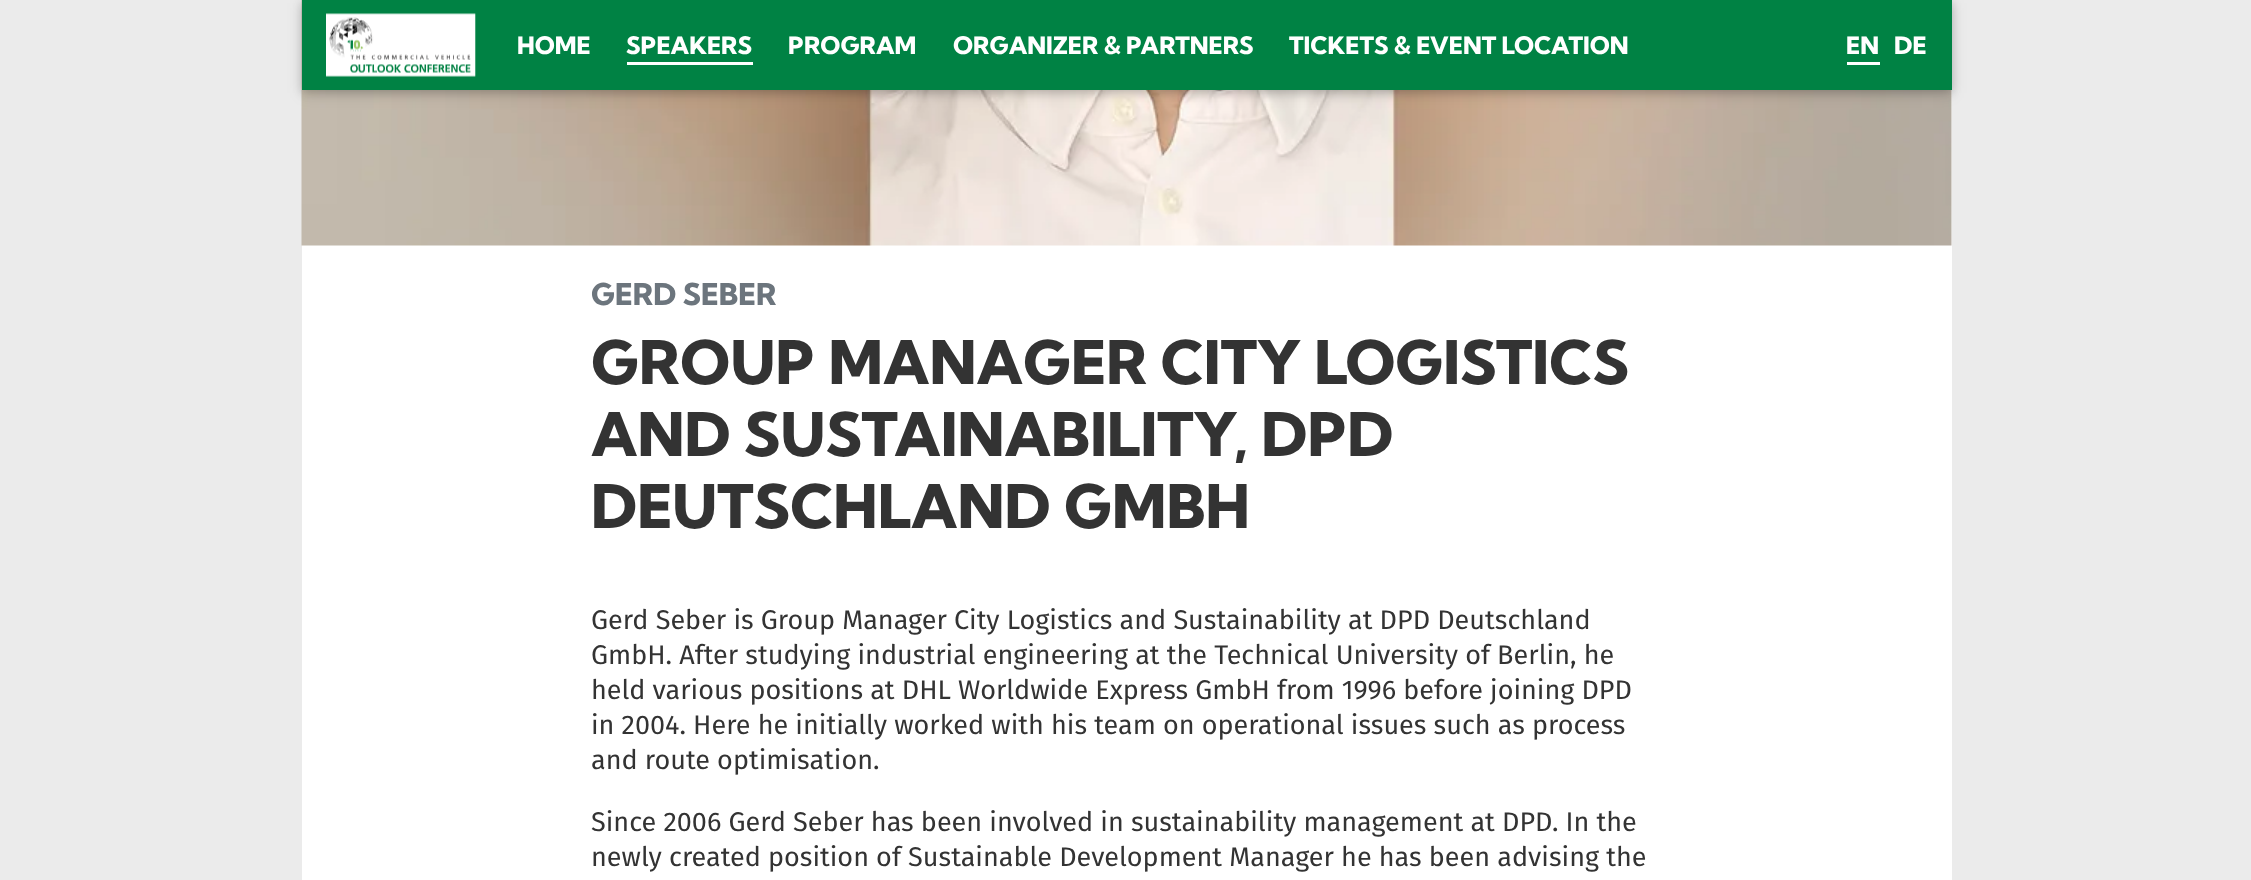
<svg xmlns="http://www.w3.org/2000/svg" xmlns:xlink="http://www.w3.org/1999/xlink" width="2251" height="880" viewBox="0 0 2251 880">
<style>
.cls-1{font:800 24px Kumbh Sans;fill:#ffffff}
.cls-2{font:800 30px Kumbh Sans;fill:#6c757d}
.cls-3{font:800 60px Kumbh Sans;fill:#333333}
.cls-4{font:27px Fira Sans;fill:#333333}
</style>
<rect width="100%" height="100%" fill="#ebebeb"/>
<rect fill="#ffffff" x="302" y="90" width="1650" height="790"/>
<image xlink:href="image1.png" x="301" y="0" width="1651" height="246"/>
<rect fill="#000000" fill-opacity="0.12" filter="blur(7.5px)" x="302" y="3" width="1650" height="90"/>
<rect fill="#000000" fill-opacity="0.16" filter="blur(4px)" x="302" y="3" width="1650" height="90"/>
<rect fill="#008244" x="302" y="0" width="1650" height="90"/>
<image xlink:href="image0.png" x="326" y="13" width="150" height="64"/>
<rect fill="#ffffff" x="627" y="62" width="126" height="3"/>
<rect fill="#ffffff" x="1847" y="62" width="33" height="3"/>
<text class="cls-1" x="517" y="54">HOME</text>
<text class="cls-1" x="626" y="54">SPEAKERS</text>
<text class="cls-1" x="788" y="54">PROGRAM</text>
<text class="cls-1" x="953" y="54">ORGANIZER &amp; PARTNERS</text>
<text class="cls-1" x="1289" y="54">TICKETS &amp; EVENT LOCATION</text>
<text class="cls-1" x="1846" y="54">EN</text>
<text class="cls-1" x="1894" y="54">DE</text>
<text class="cls-2" x="591" y="305">GERD SEBER</text>
<text class="cls-3"><tspan x="591" y="384">GROUP MANAGER CITY LOGISTICS</tspan><tspan x="591" y="456">AND SUSTAINABILITY, DPD</tspan><tspan x="591" y="528">DEUTSCHLAND GMBH</tspan></text>
<text class="cls-4"><tspan x="591" y="629">Gerd Seber is Group Manager City Logistics and Sustainability at DPD Deutschland</tspan><tspan x="591" y="664">GmbH. After studying industrial engineering at the Technical University of Berlin, he</tspan><tspan x="591" y="699">held various positions at DHL Worldwide Express GmbH from 1996 before joining DPD</tspan><tspan x="591" y="734">in 2004. Here he initially worked with his team on operational issues such as process</tspan><tspan x="591" y="769">and route optimisation.</tspan></text>
<text class="cls-4"><tspan x="591" y="831">Since 2006 Gerd Seber has been involved in sustainability management at DPD. In the</tspan><tspan x="591" y="866">newly created position of Sustainable Development Manager he has been advising the</tspan></text>
</svg>
